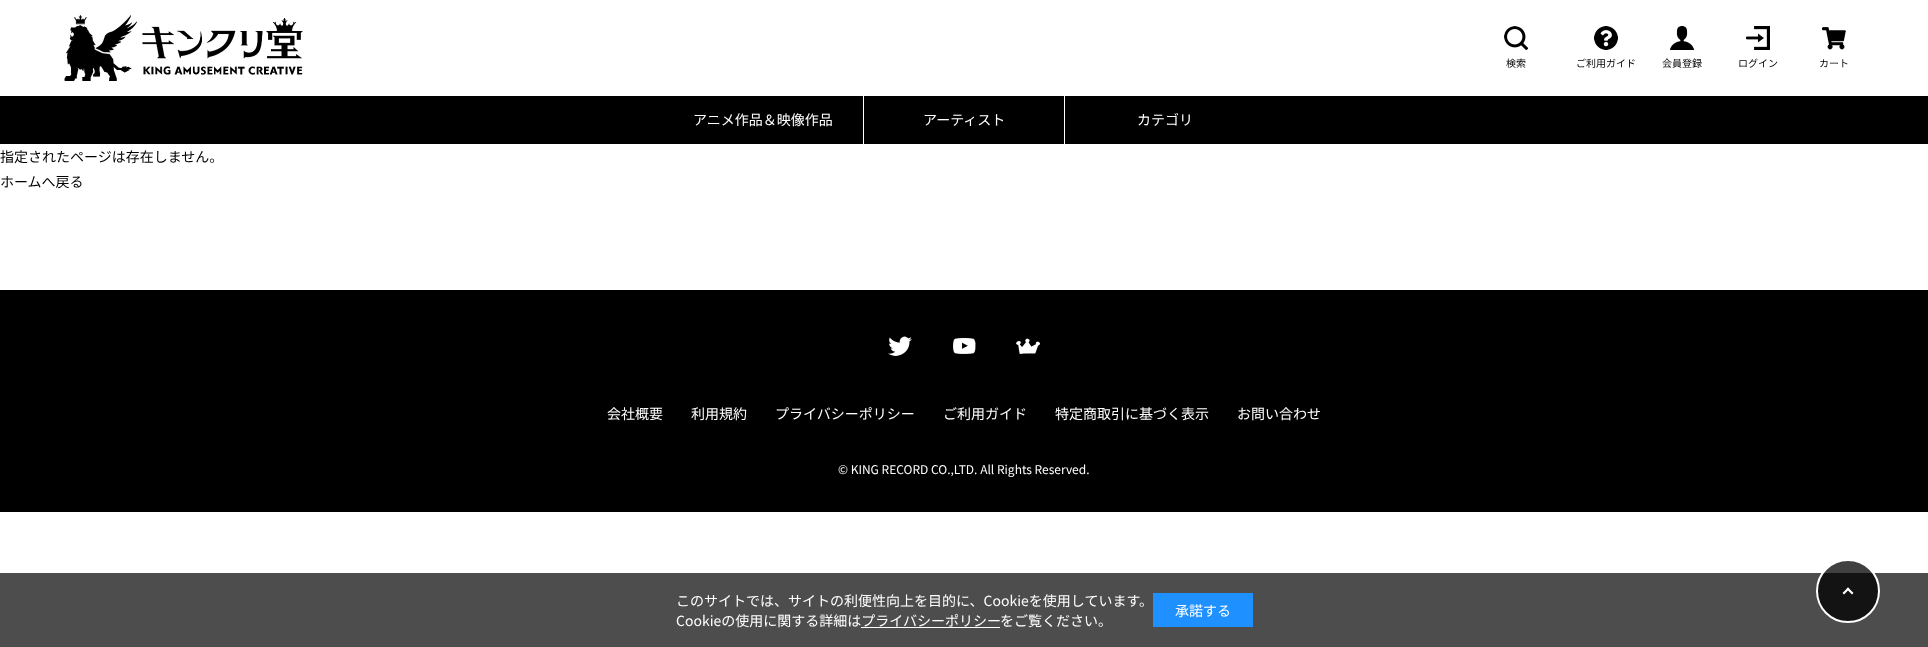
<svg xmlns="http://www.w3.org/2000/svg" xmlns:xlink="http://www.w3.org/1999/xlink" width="1928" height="647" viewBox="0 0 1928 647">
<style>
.cls-1{font:10px Noto Sans JP;fill:#000000}
.cls-2{font:14px Noto Sans JP;fill:#ffffff}
.cls-3{font:14px Noto Sans JP;fill:#000000}
.cls-4{font:12px Noto Sans JP;fill:#ffffff}
</style>
<rect width="100%" height="100%" fill="#ffffff"/>
<image xlink:href="image0.png" x="64" y="15" width="239" height="66"/>
<image xlink:href="image1.png" x="1504" y="26" width="24" height="24"/>
<image xlink:href="image2.png" x="1594" y="26" width="24" height="24"/>
<image xlink:href="image3.png" x="1670" y="26" width="24" height="24"/>
<image xlink:href="image4.png" x="1746" y="26" width="24" height="24"/>
<image xlink:href="image5.png" x="1822" y="27" width="24" height="23"/>
<rect fill="#000000" x="0" y="96" width="1928" height="48"/>
<rect fill="#ffffff" x="863" y="96" width="1" height="48"/>
<rect fill="#ffffff" x="1064" y="96" width="1" height="48"/>
<rect fill="#000000" x="0" y="290" width="1928" height="222"/>
<image xlink:href="image6.png" x="888" y="336" width="24" height="20"/>
<image xlink:href="image7.png" x="953" y="338" width="23" height="16"/>
<image xlink:href="image8.png" x="1016" y="338" width="24" height="16"/>
<rect fill="#4d4d4d" x="0" y="573" width="1928" height="74"/>
<rect fill="#ffffff" x="861" y="627" width="139" height="1"/>
<rect fill="#1e90ff" x="1153" y="593" width="100" height="34"/>
<circle fill="#000000" fill-opacity="0.75" stroke="#ffffff" stroke-width="2" cx="1848" cy="591" r="31"/>
<path fill="#ffffff" d="M1848 587.5L1853.5 593L1852 594.5L1846.5 589Z"/>
<path fill="#ffffff" d="M1848 587.5L1849.5 589L1844 594.5L1842.5 593Z"/>
<text class="cls-1" x="1506" y="67">検索</text>
<text class="cls-1" x="1576" y="67">ご利用ガイド</text>
<text class="cls-1" x="1662" y="67">会員登録</text>
<text class="cls-1" x="1738" y="67">ログイン</text>
<text class="cls-1" x="1819" y="67">カート</text>
<text class="cls-2" x="693" y="125">アニメ作品＆映像作品</text>
<text class="cls-2" x="923" y="125">アーティスト</text>
<text class="cls-2" x="1137" y="125">カテゴリ</text>
<text class="cls-3"><tspan x="0" y="162">指定されたページは存在しません。</tspan><tspan x="0" y="187">ホームへ戻る</tspan></text>
<text class="cls-2" x="607" y="419">会社概要</text>
<text class="cls-2" x="691" y="419">利用規約</text>
<text class="cls-2" x="775" y="419">プライバシーポリシー</text>
<text class="cls-2" x="943" y="419">ご利用ガイド</text>
<text class="cls-2" x="1055" y="419">特定商取引に基づく表示</text>
<text class="cls-2" x="1237" y="419">お問い合わせ</text>
<text class="cls-4" x="838" y="474">© KING RECORD CO.,LTD. All Rights Reserved.</text>
<text class="cls-2"><tspan x="676" y="606">このサイトでは、サイトの利便性向上を目的に、Cookieを使用しています。</tspan><tspan x="676" y="626">Cookieの使用に関する詳細はプライバシーポリシー</tspan></text>
<text class="cls-2" x="1000" y="626">をご覧ください。</text>
<text class="cls-2" x="1175" y="616">承諾する</text>
</svg>
